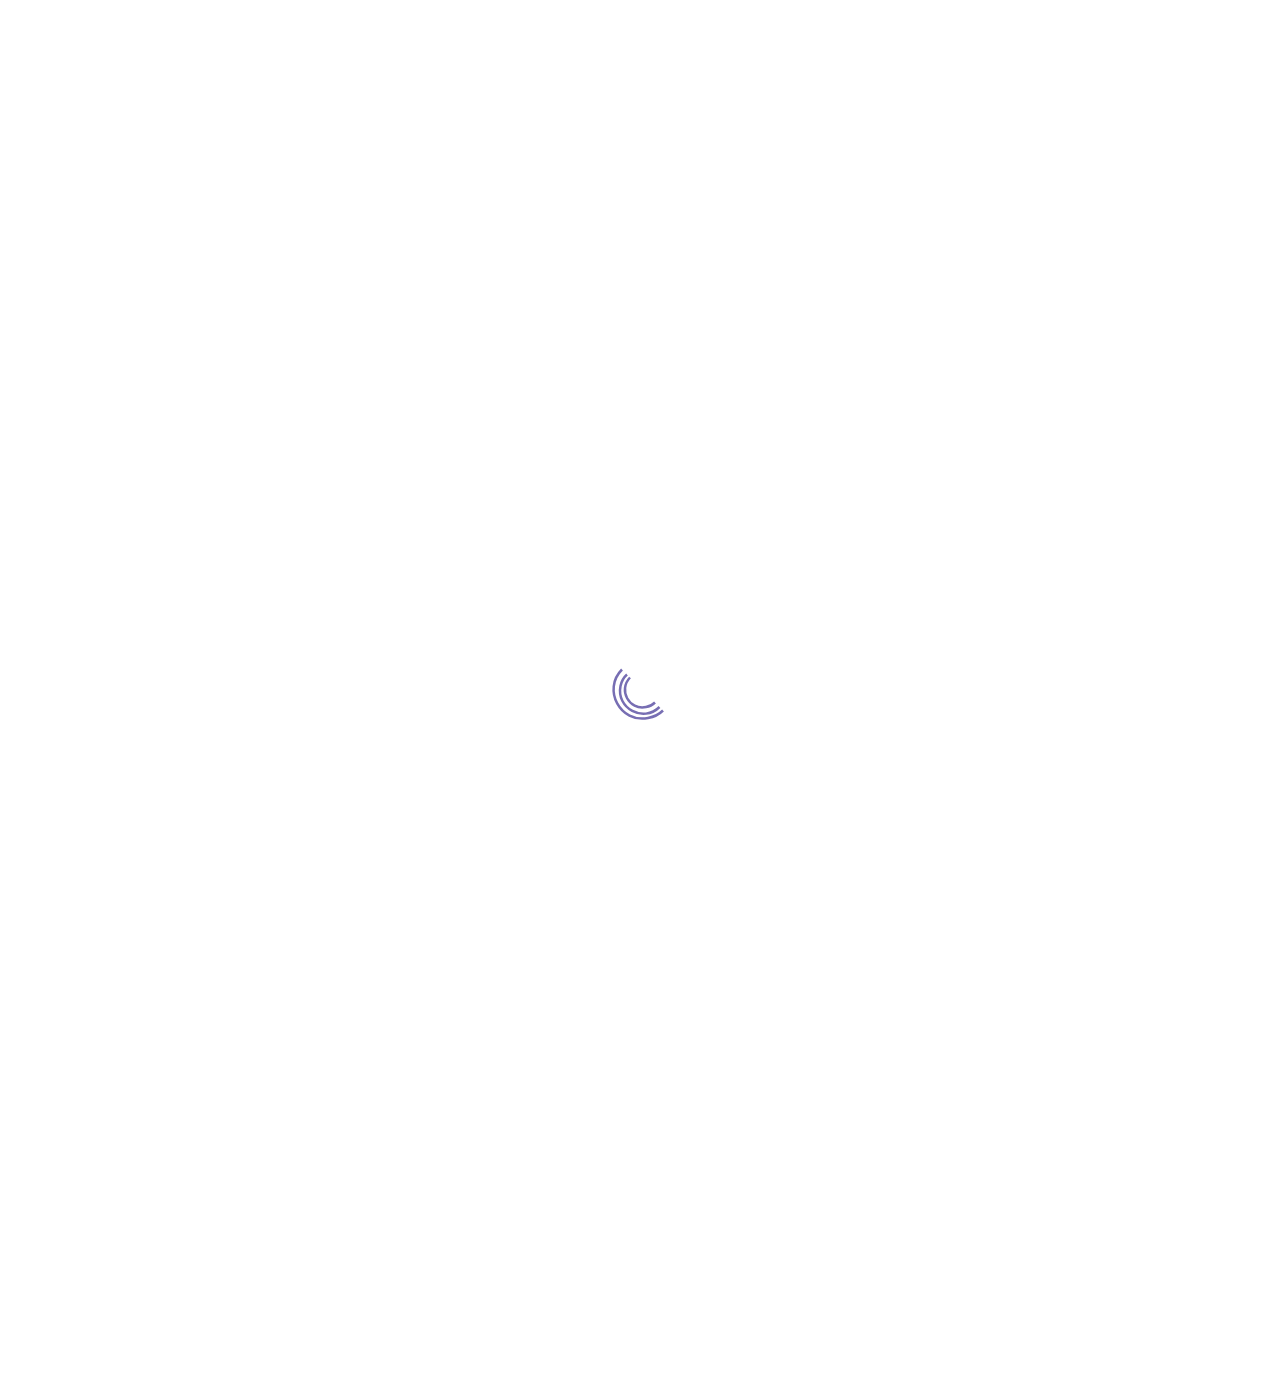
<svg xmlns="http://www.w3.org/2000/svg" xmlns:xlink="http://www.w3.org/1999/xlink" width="1284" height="1380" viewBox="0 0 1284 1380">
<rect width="100%" height="100%" fill="#ffffff"/>
<path fill="none" stroke="#776eb3" stroke-width="2.5" d="M663 710.5C659 714.5 653.5 717 648 718C620.5 723.5 602 689.5 622 669.5M659.5 707C643.5 723 616 708.5 620.5 686C621.5 681.5 623.5 677.5 627 674.5M655 702.5C652.5 705 649.5 706.5 646 707C629 710.5 618 690 630 677.5"/>
</svg>
